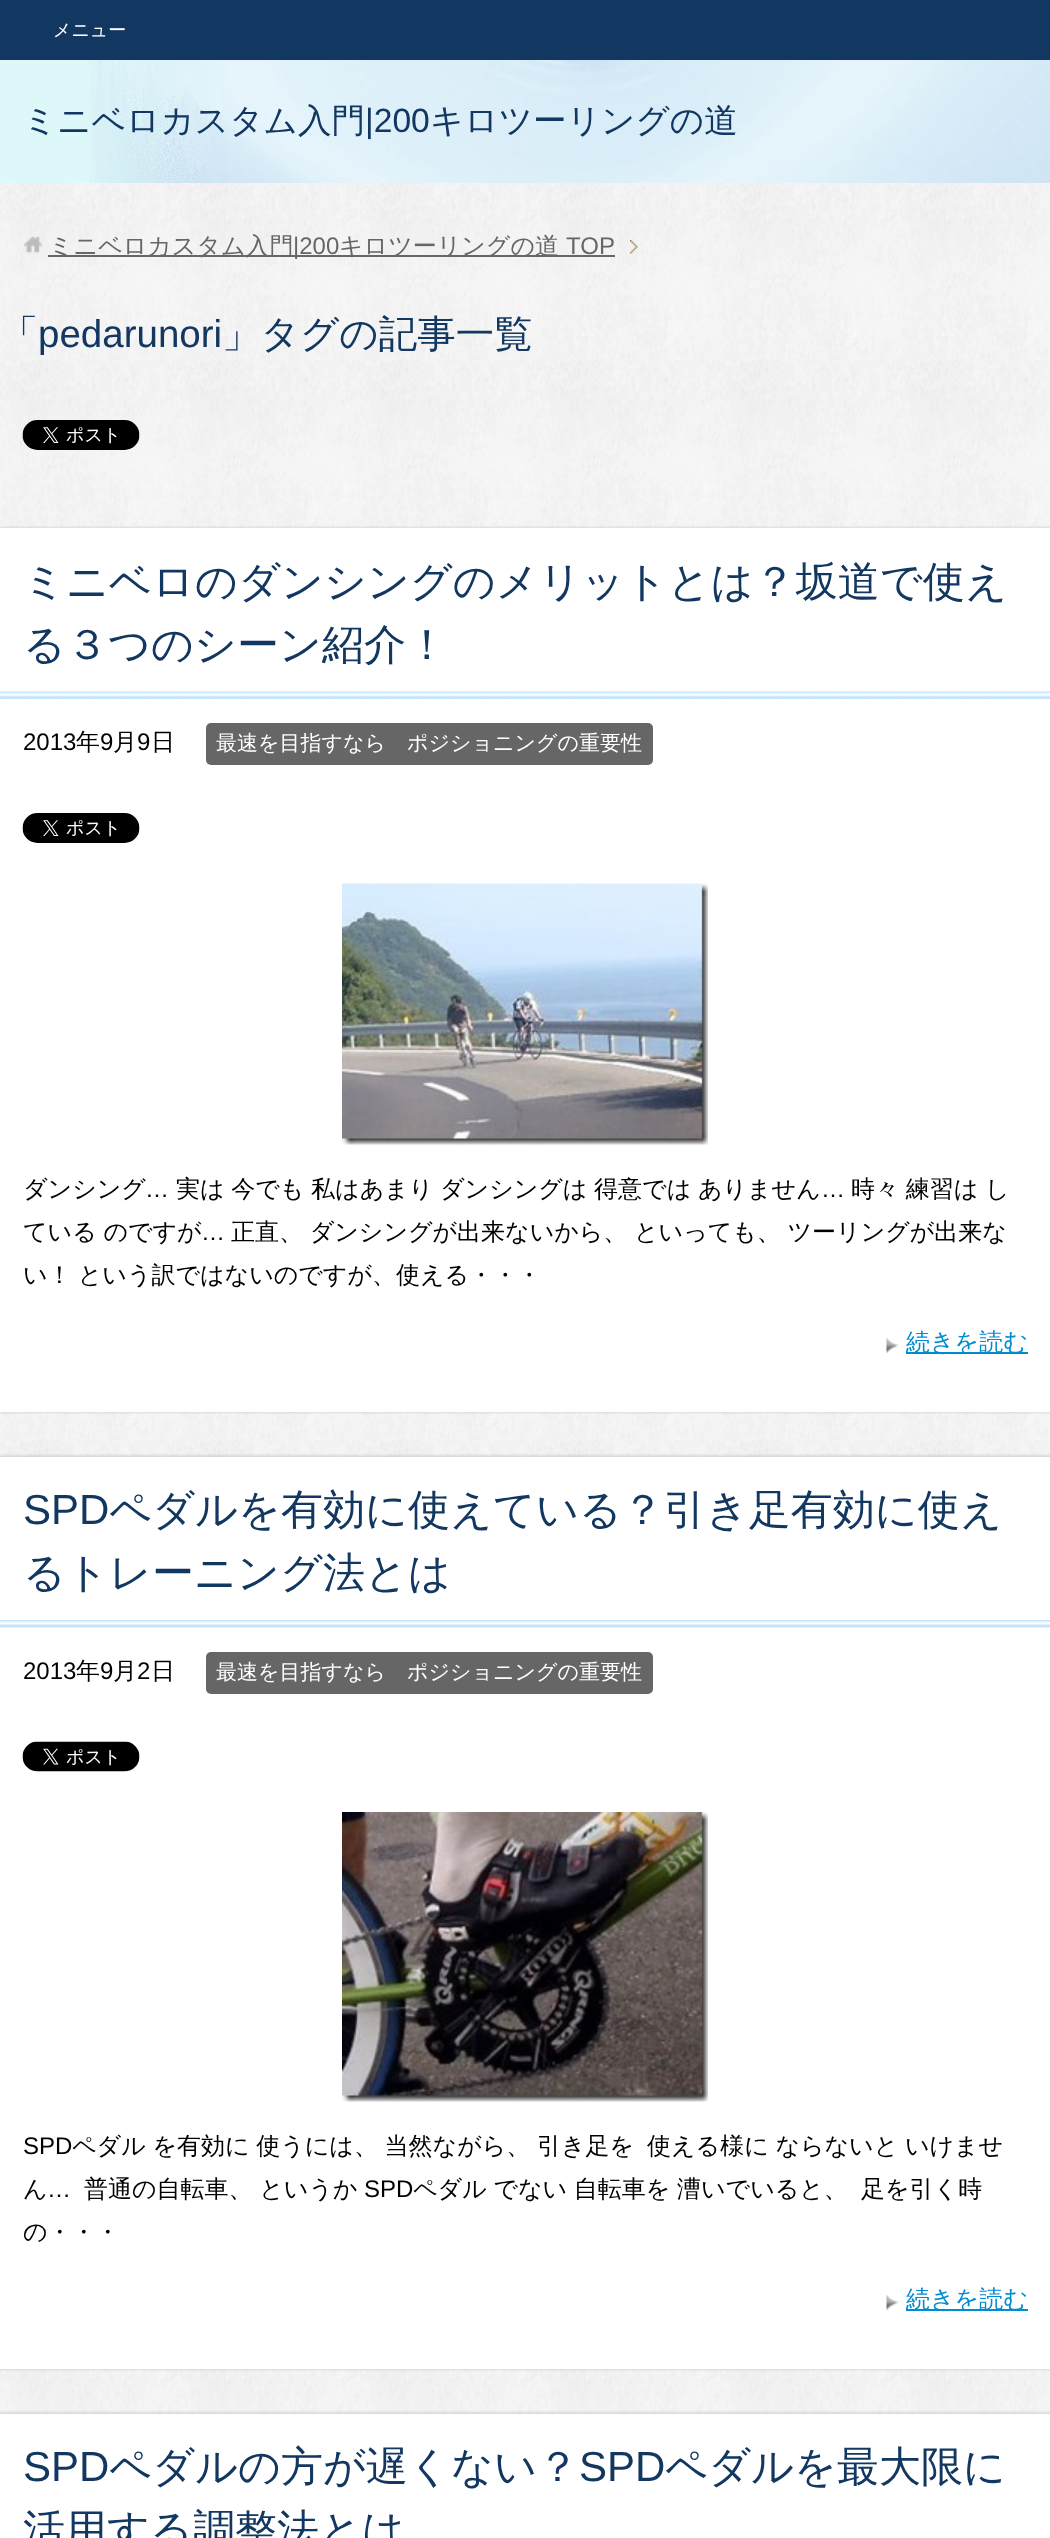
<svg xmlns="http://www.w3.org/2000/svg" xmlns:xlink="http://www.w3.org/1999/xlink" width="1050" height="2538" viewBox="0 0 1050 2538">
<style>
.cls-1{font:500 18px WenQuanYi Zen Hei;fill:#ffffff}
.cls-2{font:500 33.6px WenQuanYi Zen Hei;fill:#123760}
.cls-3{font:33.6px Liberation Sans;fill:#123760}
.cls-4{font:500 24px WenQuanYi Zen Hei;fill:#666666}
.cls-5{font:24px Liberation Sans;fill:#666666}
.cls-6{font:500 38.5px WenQuanYi Zen Hei;fill:#123760}
.cls-7{font:38.5px Liberation Sans;fill:#123760}
.cls-8{font:500 42px WenQuanYi Zen Hei;fill:#123760}
.cls-9{font:24px Liberation Sans;fill:#000000}
.cls-10{font:500 24px WenQuanYi Zen Hei;fill:#000000}
.cls-11{font:500 21px WenQuanYi Zen Hei;fill:#ffffff}
.cls-12{font:500 24px WenQuanYi Zen Hei;fill:#008cd1}
.cls-13{font:42px Liberation Sans;fill:#123760}
</style>
<rect width="100%" height="100%" fill="#ffffff"/>
<image xlink:href="image0.png" x="0" y="183" width="1050" height="2231"/>
<rect fill="#def8f9" x="0" y="60" width="1050" height="123"/>
<image xlink:href="image1.png" x="89" y="60" width="961" height="123"/>
<rect fill="#123760" x="0" y="0" width="1050" height="60"/>
<image xlink:href="image2.png" x="630" y="240" width="8" height="14"/>
<image xlink:href="image3.png" x="24" y="236" width="18" height="17"/>
<rect fill="#666666" x="48" y="255" width="567" height="2"/>
<image xlink:href="image4.png" x="22" y="420" width="118" height="30"/>
<rect fill="#000000" fill-opacity="0.1" filter="blur(1px)" x="-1" y="527" width="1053" height="886"/>
<rect fill="#ffffff" x="0" y="528" width="1050" height="884"/>
<image xlink:href="image5.png" x="0" y="691" width="1050" height="8"/>
<rect fill="#666666" x="206" y="723" width="447" height="42" rx="5"/>
<image xlink:href="image6.png" x="22" y="813" width="118" height="30"/>
<image xlink:href="image7.png" x="342" y="883" width="366" height="262"/>
<image xlink:href="image8.png" x="886" y="1338" width="13" height="15"/>
<rect fill="#008cd1" x="906" y="1352" width="122" height="2"/>
<rect fill="#000000" fill-opacity="0.1" filter="blur(1px)" x="-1" y="1455" width="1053" height="915"/>
<rect fill="#ffffff" x="0" y="1457" width="1050" height="912"/>
<image xlink:href="image9.png" x="0" y="1620" width="1050" height="8"/>
<rect fill="#666666" x="206" y="1652" width="447" height="42" rx="5"/>
<image xlink:href="image10.png" x="22" y="1741" width="118" height="31"/>
<image xlink:href="image11.png" x="342" y="1812" width="366" height="290"/>
<image xlink:href="image8.png" x="886" y="2295" width="13" height="15"/>
<rect fill="#008cd1" x="906" y="2309" width="122" height="2"/>
<rect fill="#000000" fill-opacity="0.1" filter="blur(1px)" x="-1" y="2412" width="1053" height="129"/>
<rect fill="#ffffff" x="0" y="2414" width="1050" height="124"/>
<text class="cls-1" x="53" y="36">メニュー</text>
<text class="cls-2" x="23" y="132">ミニベロカスタム入門</text>
<text class="cls-3" x="365" y="132">|200</text>
<text class="cls-2" x="430" y="132">キロツーリングの道</text>
<text class="cls-4" x="49" y="254">ミニベロカスタム入門</text>
<text class="cls-5" x="293" y="254">|200</text>
<text class="cls-4" x="339" y="254">キロツーリングの道</text>
<text class="cls-5" x="566" y="254">TOP</text>
<text class="cls-6" x="0" y="347">「</text>
<text class="cls-7" x="38" y="347">pedarunori</text>
<text class="cls-6" x="222" y="347">」タグの記事一覧</text>
<text class="cls-8"><tspan x="23" y="596">ミニベロのダンシングのメリットとは？坂道で使え</tspan><tspan x="23" y="659">る３つのシーン紹介！</tspan></text>
<text class="cls-9" x="23" y="750">2013</text>
<text class="cls-10" x="76" y="750">年</text>
<text class="cls-9" x="100" y="750">9</text>
<text class="cls-10" x="113" y="750">月</text>
<text class="cls-9" x="137" y="750">9</text>
<text class="cls-10" x="151" y="750">日</text>
<text class="cls-11" x="216" y="750">最速を目指すなら　ポジショニングの重要性</text>
<text class="cls-10" x="23" y="1197">ダンシング</text>
<text class="cls-9" x="145" y="1197">…</text>
<text class="cls-10" x="176" y="1197" word-spacing="-0.5">実は 今でも 私はあまり ダンシングは 得意では ありません</text>
<text class="cls-9" x="821" y="1197">…</text>
<text class="cls-10" x="851" y="1197" word-spacing="-0.5">時々 練習は し</text>
<text class="cls-10" x="23" y="1240" word-spacing="-0.5">ている のですが</text>
<text class="cls-9" x="201" y="1240">…</text>
<text class="cls-10" x="231" y="1240" word-spacing="-0.5">正直、 ダンシングが出来ないから、 といっても、 ツーリングが出来な</text>
<text class="cls-10" x="23" y="1283" word-spacing="-1">い！ という訳ではないのですが、使える・・・</text>
<text class="cls-12" x="906" y="1350">続きを読む</text>
<text class="cls-13" x="23" y="1524">SPD</text>
<text class="cls-8" x="109" y="1524">ペダルを有効に使えている？引き足有効に使え</text>
<text class="cls-8" x="23" y="1587">るトレーニング法とは</text>
<text class="cls-9" x="23" y="1679">2013</text>
<text class="cls-10" x="76" y="1679">年</text>
<text class="cls-9" x="100" y="1679">9</text>
<text class="cls-10" x="113" y="1679">月</text>
<text class="cls-9" x="137" y="1679">2</text>
<text class="cls-10" x="151" y="1679">日</text>
<text class="cls-11" x="216" y="1679">最速を目指すなら　ポジショニングの重要性</text>
<text class="cls-9" x="23" y="2154">SPD</text>
<text class="cls-10" x="72" y="2154" word-spacing="-0.5">ペダル を有効に 使うには、 当然ながら、 引き足を</text>
<text class="cls-10" x="647" y="2154" word-spacing="-0.5">使える様に ならないと いけませ</text>
<text class="cls-10" x="23" y="2197">ん</text>
<text class="cls-9" x="47" y="2197">…</text>
<text class="cls-10" x="84" y="2197" word-spacing="-0.5">普通の自転車、 というか</text>
<text class="cls-9" x="364" y="2197">SPD</text>
<text class="cls-10" x="413" y="2197" word-spacing="-0.5">ペダル でない 自転車を 漕いでいると、</text>
<text class="cls-10" x="861" y="2197">足を引く時</text>
<text class="cls-10" x="23" y="2240">の・・・</text>
<text class="cls-12" x="906" y="2307">続きを読む</text>
<text class="cls-13" x="23" y="2481">SPD</text>
<text class="cls-8" x="109" y="2481">ペダルの方が遅くない？</text>
<text class="cls-13" x="579" y="2481">SPD</text>
<text class="cls-8" x="665" y="2481">ペダルを最大限に</text>
<text class="cls-8" x="23" y="2544">活用する調整法とは</text>
</svg>
